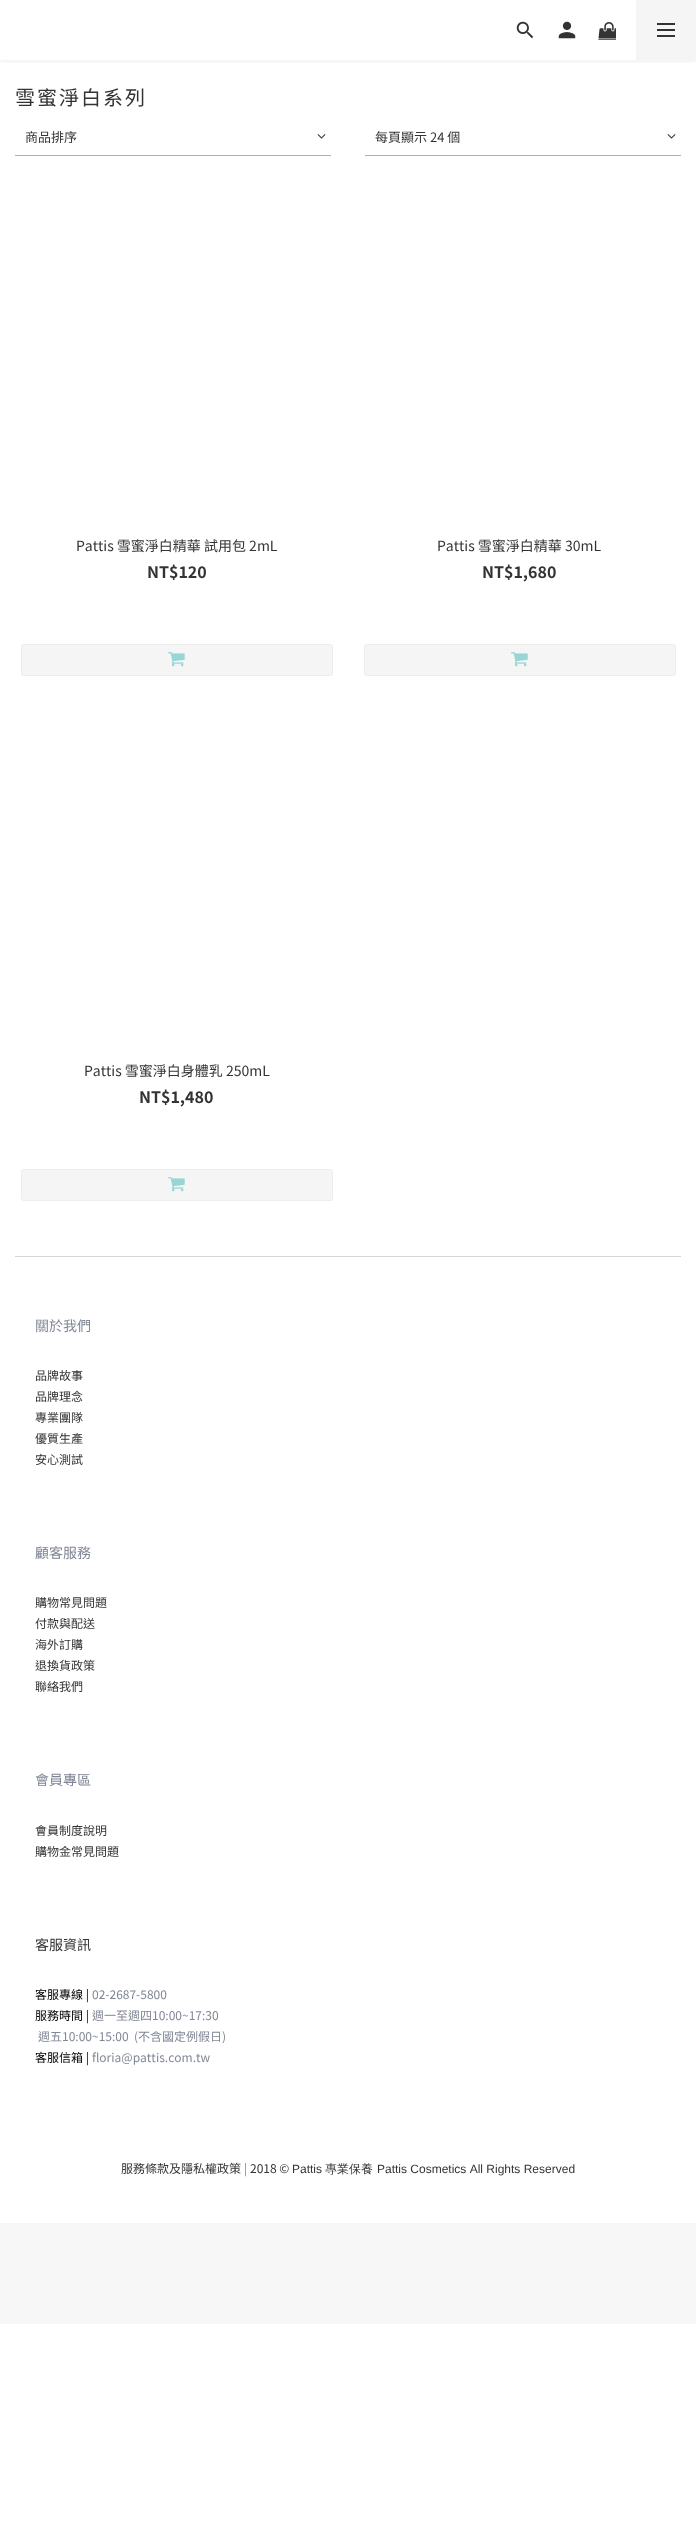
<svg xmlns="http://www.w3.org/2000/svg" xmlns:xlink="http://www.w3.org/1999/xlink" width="696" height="2524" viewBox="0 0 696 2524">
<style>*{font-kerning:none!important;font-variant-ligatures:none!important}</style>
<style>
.cls-1{font:20px Noto Sans TC;letter-spacing:2px;fill:#333333}
.cls-2{font:13px Noto Sans TC;fill:#333333}
.cls-3{font:14px Noto Sans TC;fill:#333333}
.cls-4{font:bold 16px Noto Sans TC;fill:#333333}
.cls-5{font:14px Noto Sans TC;fill:#818796}
.cls-6{font:12px Noto Sans TC;fill:#333333}
.cls-7{font:12px Noto Sans TC;fill:#000000}
.cls-8{font:12px Noto Sans TC;fill:#818796}
.cls-9{font:12px Liberation Sans;fill:#333333}
.cls-10{font:500 12px WenQuanYi Zen Hei;fill:#333333}
</style>
<defs>
<clipPath id="clip1"><rect x="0" y="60" width="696" height="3"/></clipPath>
</defs>
<rect width="100%" height="100%" fill="#ffffff"/>
<g clip-path="url(#clip1)">
<rect fill="#000000" fill-opacity="0.06" filter="blur(3px)" x="0" y="2" width="696" height="60"/>
</g>
<image xlink:href="image0.png" x="516" y="21" width="18" height="18"/>
<image xlink:href="image1.png" x="558" y="21" width="18" height="18"/>
<image xlink:href="image2.png" x="598" y="22" width="18" height="18"/>
<rect fill="#f5f5f5" x="636" y="0" width="60" height="60"/>
<rect fill="#333333" x="657" y="29" width="18" height="2"/>
<rect fill="#333333" x="657" y="23" width="18" height="2"/>
<rect fill="#333333" x="657" y="35" width="18" height="2"/>
<rect fill="#adadad" x="15" y="155" width="316" height="1"/>
<image xlink:href="image3.png" x="317" y="134" width="9" height="5"/>
<rect fill="#adadad" x="365" y="155" width="316" height="1"/>
<image xlink:href="image3.png" x="667" y="134" width="9" height="5"/>
<rect fill="#f5f5f5" x="21" y="644" width="312" height="32" rx="3"/>
<rect fill="none" stroke="#cccccc" stroke-opacity="0.2" x="21.5" y="644.5" width="311" height="31" rx="2.5"/>
<image xlink:href="image4.png" x="168" y="652" width="17" height="15"/>
<rect fill="#f5f5f5" x="364" y="644" width="312" height="32" rx="3"/>
<rect fill="none" stroke="#cccccc" stroke-opacity="0.2" x="364.5" y="644.5" width="311" height="31" rx="2.5"/>
<image xlink:href="image4.png" x="511" y="652" width="17" height="15"/>
<rect fill="#f5f5f5" x="21" y="1169" width="312" height="32" rx="3"/>
<rect fill="none" stroke="#cccccc" stroke-opacity="0.2" x="21.5" y="1169.5" width="311" height="31" rx="2.5"/>
<image xlink:href="image4.png" x="168" y="1177" width="17" height="15"/>
<rect fill="#d6d6d6" x="15" y="1256" width="666" height="1"/>
<rect fill="#f7f7f7" x="0" y="2223" width="696" height="101"/>
<text class="cls-1" x="15" y="105">雪蜜淨白系列</text>
<text class="cls-2" x="25" y="142">商品排序</text>
<text class="cls-2" x="375" y="142">每頁顯示 24 個</text>
<text class="cls-3" x="76" y="551">Pattis 雪蜜淨白精華 試用包 2mL</text>
<text class="cls-4" x="147" y="578">NT$120</text>
<text class="cls-3" x="437" y="551">Pattis 雪蜜淨白精華 30mL</text>
<text class="cls-4" x="482" y="578">NT$1,680</text>
<text class="cls-3" x="84" y="1076">Pattis 雪蜜淨白身體乳 250mL</text>
<text class="cls-4" x="139" y="1103">NT$1,480</text>
<text class="cls-5" x="35" y="1331">關於我們</text>
<text class="cls-6"><tspan x="35" y="1380">品牌故事</tspan><tspan x="35" y="1401">品牌理念</tspan><tspan x="35" y="1422">專業團隊</tspan><tspan x="35" y="1443">優質生產</tspan><tspan x="35" y="1464">安心測試</tspan></text>
<text class="cls-5" x="35" y="1558">顧客服務</text>
<text class="cls-6"><tspan x="35" y="1607">購物常見問題</tspan><tspan x="35" y="1628">付款與配送</tspan><tspan x="35" y="1649">海外訂購</tspan><tspan x="35" y="1670">退換貨政策</tspan><tspan x="35" y="1691">聯絡我們</tspan></text>
<text class="cls-5" x="35" y="1785">會員專區</text>
<text class="cls-6"><tspan x="35" y="1835">會員制度說明</tspan><tspan x="35" y="1856">購物金常見問題</tspan></text>
<text class="cls-3" x="35" y="1950">客服資訊</text>
<text class="cls-7" x="35" y="1999">客服專線 |</text>
<text class="cls-8" x="92" y="1999">02-2687-5800</text>
<text class="cls-7" x="35" y="2020">服務時間 |</text>
<text class="cls-8" x="92" y="2020">週一至週四10:00~17:30</text>
<text class="cls-8" x="38" y="2041">週五10:00~15:00</text>
<text class="cls-8" x="134" y="2041">(不含國定例假日)</text>
<text class="cls-7" x="35" y="2062">客服信箱 |</text>
<text class="cls-8" x="92" y="2062">floria@pattis.com.tw</text>
<text class="cls-6" x="121" y="2173">服務條款及隱私權政策</text>
<text class="cls-8" x="244" y="2173">|</text>
<text class="cls-6" x="250" y="2173">2018 ©</text>
<text class="cls-9" x="292" y="2173">Pattis</text>
<text class="cls-10" x="325" y="2173">專業保養</text>
<text class="cls-9" x="377" y="2173">Pattis Cosmetics All Rights Reserved</text>
</svg>
